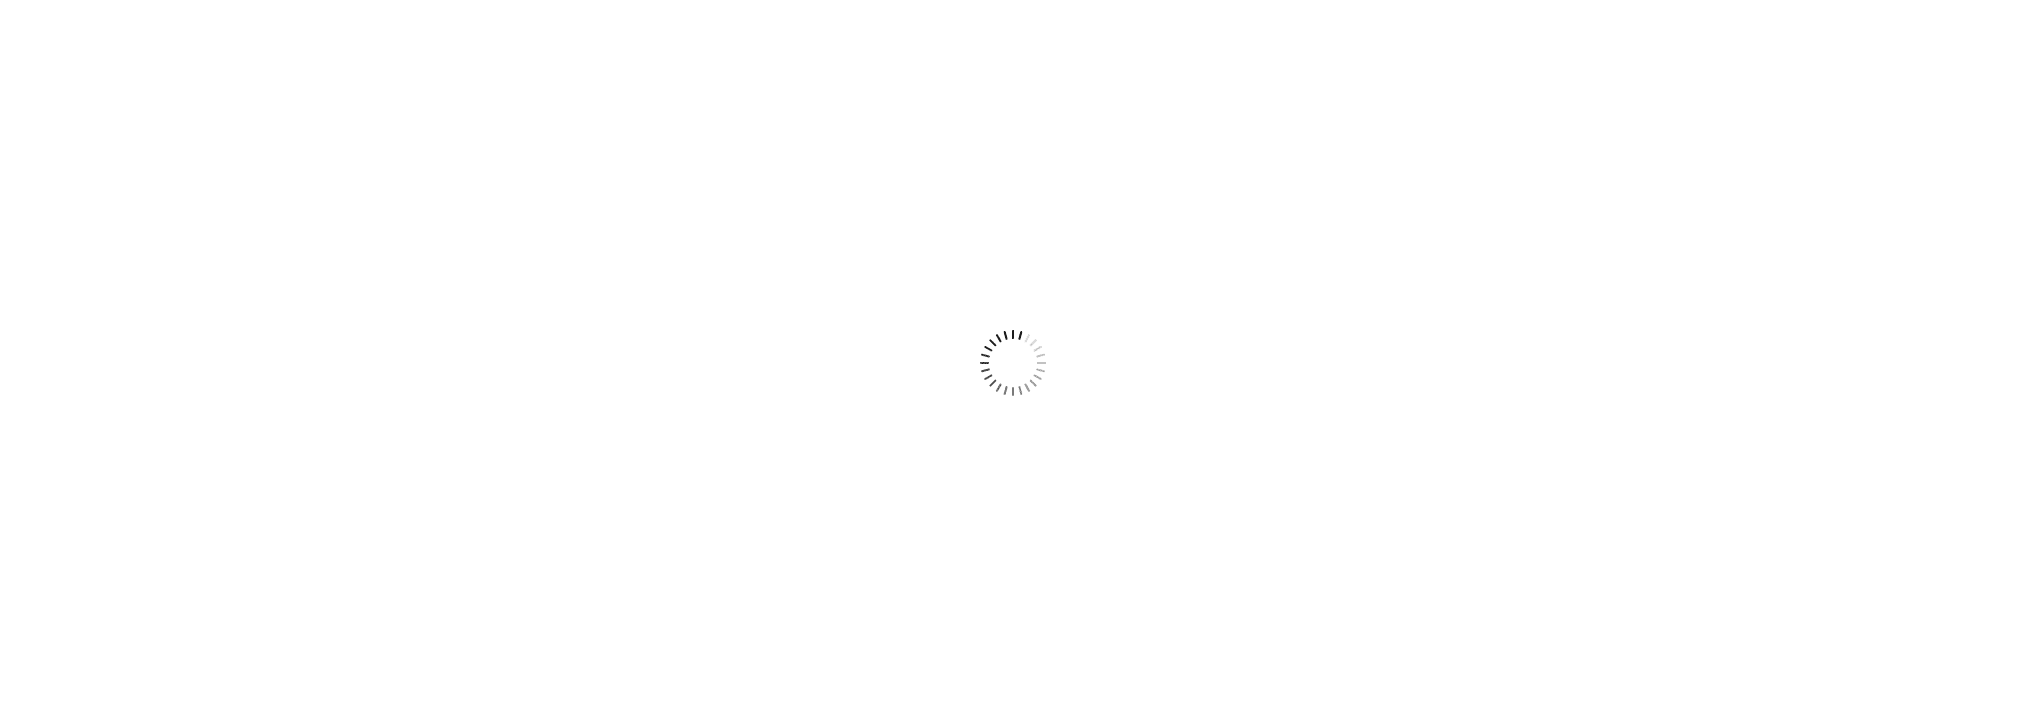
<svg xmlns="http://www.w3.org/2000/svg" xmlns:xlink="http://www.w3.org/1999/xlink" width="2026" height="725" viewBox="0 0 2026 725">
<rect width="100%" height="100%" fill="#ffffff"/>
<image xlink:href="image0.png" x="980" y="330" width="66" height="66"/>
</svg>
